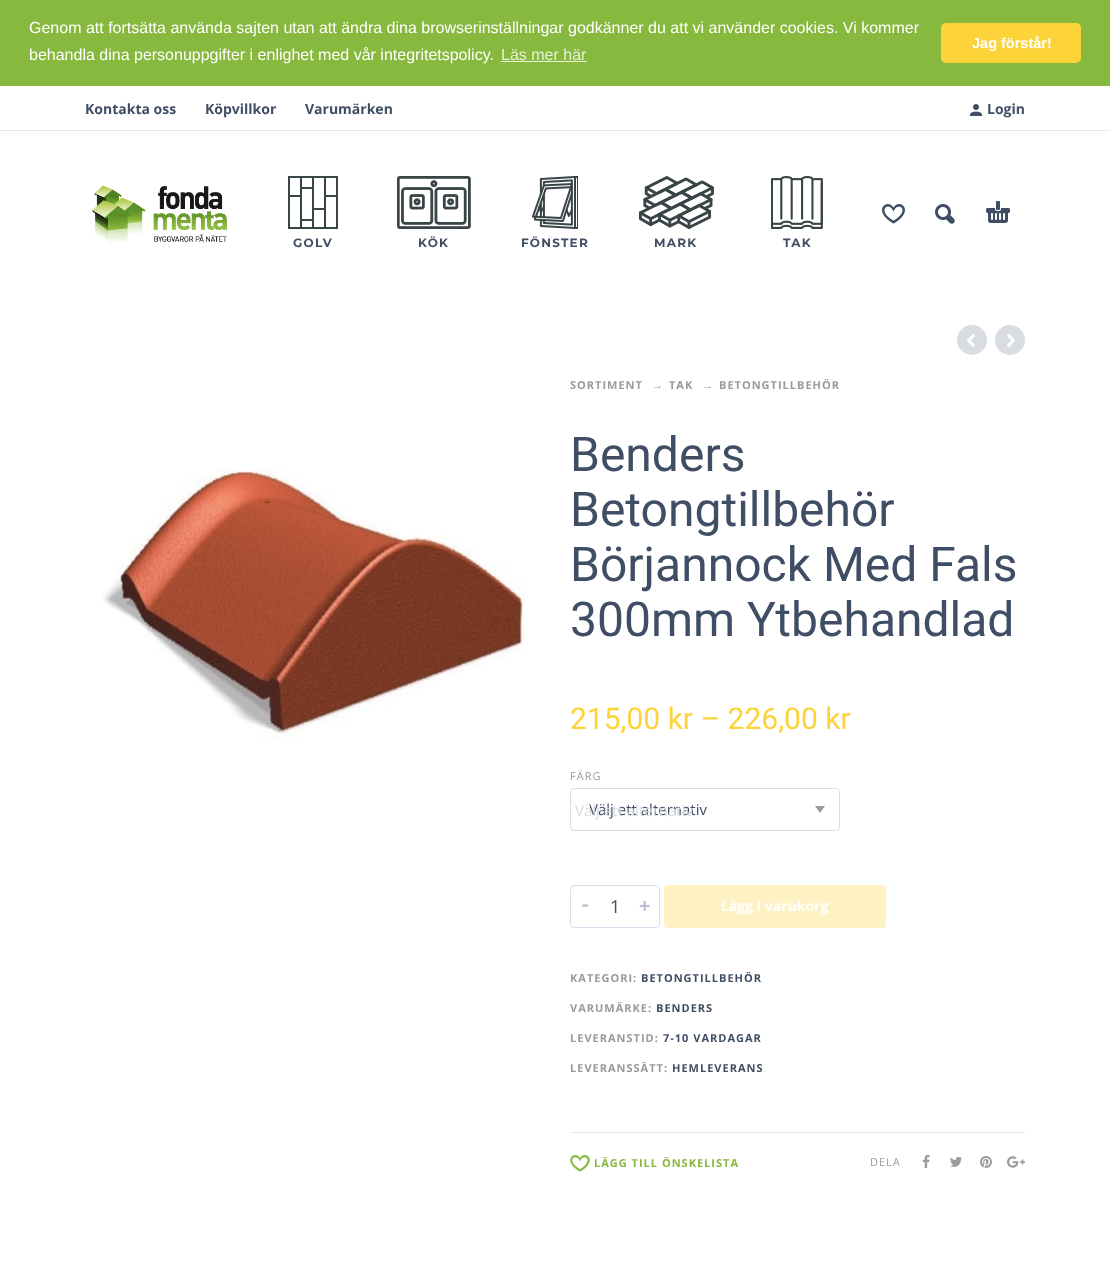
<svg xmlns="http://www.w3.org/2000/svg" xmlns:xlink="http://www.w3.org/1999/xlink" width="1110" height="1276" viewBox="0 0 1110 1276">
<style>
.cls-1{font:16px Liberation Sans;fill:#ffffff}
.cls-2{font:16px Liberation Sans;fill:#e7f1d8}
.cls-3{font:bold 14.5px Liberation Sans;fill:#ffffff}
.cls-4{font:bold 14px Open Sans;fill:#404e65}
.cls-5{font:bold 12px Montserrat;letter-spacing:1.25px;fill:#404e65}
.cls-6{font:bold 11px Open Sans;letter-spacing:1px;fill:#9a9a9a}
.cls-7{font:bold 11px Liberation Sans;letter-spacing:1px;fill:#9a9a9a}
.cls-8{font:48px Roboto;fill:#404e65}
.cls-9{font:30px Roboto;fill:#fcd339}
.cls-10{font:11px Open Sans;letter-spacing:1px;fill:#9a9a9a}
.cls-11{font:15px Open Sans;fill:#404e65}
.cls-12{font:15px Open Sans;fill:#d9dbe0}
.cls-13{font:bold 20px Open Sans;fill:#b8bfd3}
.cls-14{font:18px Open Sans;fill:#404e65}
.cls-15{font:bold 14px Open Sans;fill:#ffffff}
.cls-16{font:bold 11px Open Sans;letter-spacing:1px;fill:#404e65}
.cls-17{font:bold 11px Open Sans;letter-spacing:1px;fill:#86b93e}
</style>
<rect width="100%" height="100%" fill="#ffffff"/>
<rect fill="#86b93e" x="0" y="0" width="1110" height="86"/>
<rect fill="#e7f1d8" x="501" y="61" width="86" height="1"/>
<rect fill="#fcd339" x="941" y="23" width="140" height="40" rx="5"/>
<rect fill="#e8e8e8" x="0" y="130" width="1110" height="1"/>
<image xlink:href="image0.png" x="970" y="104" width="12" height="12"/>
<image xlink:href="image1.png" x="92" y="185" width="135" height="59"/>
<image xlink:href="image2.png" x="882" y="204" width="23" height="20"/>
<image xlink:href="image3.png" x="935" y="204" width="20" height="20"/>
<image xlink:href="image4.png" x="986" y="201" width="24" height="22"/>
<rect fill="none" stroke="#394447" stroke-width="2" x="289" y="177" width="48" height="51"/>
<path fill="none" stroke="#394447" stroke-width="2" stroke-linecap="round" stroke-linejoin="round" d="M301 177V228M313 177V228"/>
<rect fill="none" stroke="#394447" stroke-width="2" x="301" y="188" width="12" height="32"/>
<rect fill="none" stroke="#394447" stroke-width="2" x="325" y="196" width="12" height="32"/>
<rect fill="none" stroke="#394447" stroke-width="2" x="313" y="177" width="12" height="32"/>
<rect fill="none" stroke="#394447" stroke-width="2" x="289" y="196" width="12" height="32"/>
<image xlink:href="image5.png" x="397" y="176" width="74" height="53"/>
<image xlink:href="image6.png" x="531" y="176" width="47" height="53"/>
<image xlink:href="image7.png" x="638" y="176" width="76" height="53"/>
<image xlink:href="image8.png" x="771" y="176" width="52" height="53"/>
<circle fill="#d9dce0" cx="972" cy="340" r="15"/>
<image xlink:href="image9.png" x="967" y="334" width="8" height="13"/>
<circle fill="#d9dce0" cx="1010" cy="340" r="15"/>
<image xlink:href="image10.png" x="1007" y="334" width="8" height="13"/>
<image xlink:href="image11.png" x="102" y="467" width="425" height="272"/>
<path fill="#999999" fill-rule="evenodd" d="M820 813L825 806H815Z"/>
<rect fill="none" stroke="#d5e0ec" x="570.5" y="788.5" width="269" height="42" rx="3.5"/>
<rect fill="none" stroke="#d5e0ec" x="570.5" y="885.5" width="89" height="42" rx="3.5"/>
<rect fill="#fef2c4" x="664" y="885" width="222" height="43" rx="4"/>
<rect fill="#eaeaea" x="570" y="1132" width="455" height="1"/>
<image xlink:href="image12.png" x="570" y="1155" width="20" height="17"/>
<image xlink:href="image13.png" x="922" y="1155" width="8" height="13"/>
<image xlink:href="image14.png" x="950" y="1157" width="12" height="10"/>
<image xlink:href="image15.png" x="980" y="1156" width="12" height="12"/>
<image xlink:href="image16.png" x="1007" y="1156" width="18" height="12"/>
<text class="cls-1"><tspan x="29" y="33">Genom att fortsätta använda sajten utan att ändra dina browserinställningar godkänner du att vi använder cookies. Vi kommer</tspan><tspan x="29" y="60">behandla dina personuppgifter i enlighet med vår integritetspolicy.</tspan></text>
<text class="cls-2" x="501" y="60">Läs mer här</text>
<text class="cls-3" x="972" y="48">Jag förstår!</text>
<text class="cls-4" x="85" y="114">Kontakta oss</text>
<text class="cls-4" x="205" y="114">Köpvillkor</text>
<text class="cls-4" x="305" y="114">Varumärken</text>
<text class="cls-4" x="987" y="114">Login</text>
<text class="cls-5" x="293" y="247">GOLV</text>
<text class="cls-5" x="418" y="247">KÖK</text>
<text class="cls-5" x="521" y="247">FÖNSTER</text>
<text class="cls-5" x="654" y="247">MARK</text>
<text class="cls-5" x="783" y="247">TAK</text>
<text class="cls-6" x="570" y="389">SORTIMENT</text>
<text class="cls-7" x="652" y="389">→</text>
<text class="cls-6" x="669" y="389">TAK</text>
<text class="cls-7" x="702" y="389">→</text>
<text class="cls-6" x="719" y="389">BETONGTILLBEHÖR</text>
<text class="cls-8"><tspan x="570" y="471">Benders</tspan><tspan x="570" y="526">Betongtillbehör</tspan><tspan x="570" y="581">Börjannock Med Fals</tspan><tspan x="570" y="636">300mm Ytbehandlad</tspan></text>
<text class="cls-9" x="570" y="729">215,00 kr – 226,00 kr</text>
<text class="cls-10" x="570" y="780">FÄRG</text>
<text class="cls-11" x="589" y="815">Välj ett alternativ</text>
<text class="cls-12" x="575" y="816">Välj ett alternativ</text>
<text class="cls-13" x="582" y="911">-</text>
<text class="cls-14" x="610" y="913">1</text>
<text class="cls-13" x="639" y="913">+</text>
<text class="cls-15" x="721" y="911">Lägg i varukorg</text>
<text class="cls-6" x="570" y="982">KATEGORI:</text>
<text class="cls-16" x="641" y="982">BETONGTILLBEHÖR</text>
<text class="cls-6" x="570" y="1012">VARUMÄRKE:</text>
<text class="cls-16" x="656" y="1012">BENDERS</text>
<text class="cls-6" x="570" y="1042">LEVERANSTID:</text>
<text class="cls-16" x="663" y="1042">7-10 VARDAGAR</text>
<text class="cls-6" x="570" y="1072">LEVERANSSÄTT:</text>
<text class="cls-16" x="672" y="1072">HEMLEVERANS</text>
<text class="cls-17" x="594" y="1167">LÄGG TILL ÖNSKELISTA</text>
<text class="cls-10" x="870" y="1166">DELA</text>
</svg>
